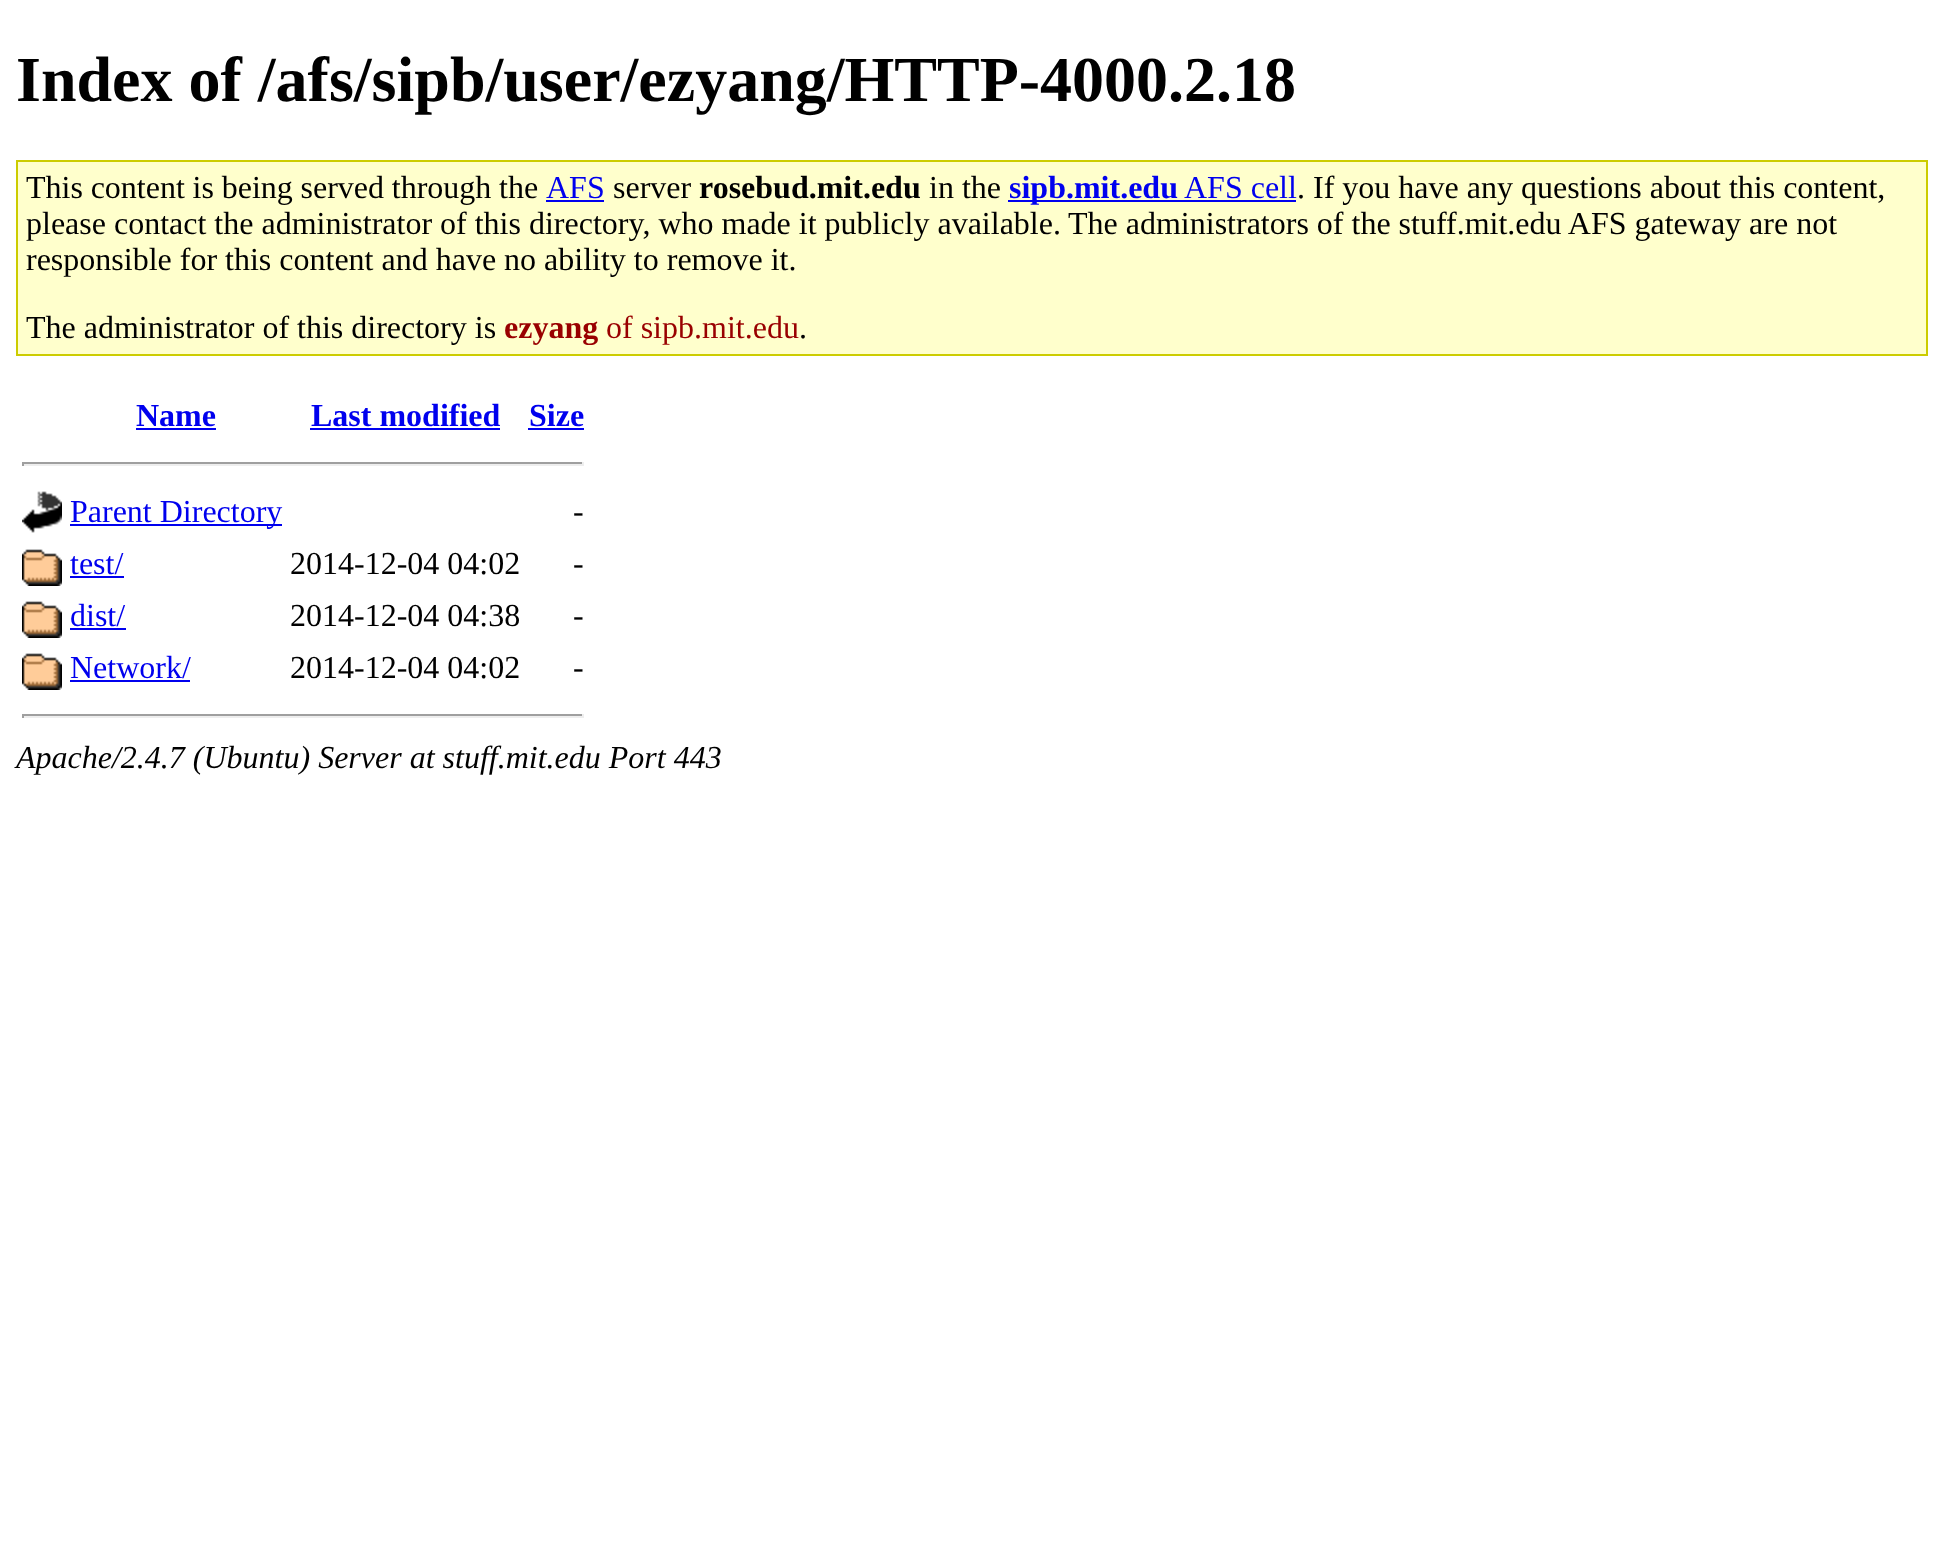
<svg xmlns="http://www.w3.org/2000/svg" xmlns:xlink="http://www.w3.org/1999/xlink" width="1943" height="1564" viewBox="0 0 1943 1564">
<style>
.cls-1{font:bold 64px Liberation Serif;fill:#000000}
.cls-2{font:32px Liberation Serif;fill:#000000}
.cls-3{font:32px Liberation Serif;fill:#0000ee}
.cls-4{font:bold 32px Liberation Serif;fill:#000000}
.cls-5{font:bold 32px Liberation Serif;fill:#0000ee}
.cls-6{font:bold 32px Liberation Serif;fill:#990000}
.cls-7{font:32px Liberation Serif;fill:#990000}
.cls-8{font:italic 32px Liberation Serif;fill:#000000}
</style>
<rect width="100%" height="100%" fill="#ffffff"/>
<rect fill="#ffffcc" stroke="#cccc00" stroke-width="2" x="17" y="161" width="1910" height="194"/>
<rect fill="#0000ee" x="546" y="200" width="58" height="2"/>
<rect fill="#0000ee" x="1008" y="200" width="288" height="2"/>
<rect fill="#0000ee" x="136" y="428" width="80" height="2"/>
<rect fill="#0000ee" x="310" y="428" width="190" height="2"/>
<rect fill="#0000ee" x="528" y="428" width="56" height="2"/>
<rect fill="#9f9f9f" x="22" y="462" width="562" height="2"/>
<rect fill="#eeeeee" x="582" y="462" width="2" height="4"/>
<rect fill="#eeeeee" x="22" y="464" width="562" height="2"/>
<rect fill="#9f9f9f" x="22" y="462" width="2" height="4"/>
<image xlink:href="image0.png" x="22" y="491" width="40" height="42"/>
<rect fill="#0000ee" x="70" y="524" width="212" height="2"/>
<image xlink:href="image1.png" x="22" y="549" width="40" height="37"/>
<rect fill="#0000ee" x="70" y="576" width="54" height="2"/>
<image xlink:href="image1.png" x="22" y="601" width="40" height="37"/>
<rect fill="#0000ee" x="70" y="628" width="56" height="2"/>
<image xlink:href="image1.png" x="22" y="653" width="40" height="37"/>
<rect fill="#0000ee" x="70" y="680" width="120" height="2"/>
<rect fill="#9f9f9f" x="22" y="714" width="562" height="2"/>
<rect fill="#eeeeee" x="582" y="714" width="2" height="4"/>
<rect fill="#eeeeee" x="22" y="716" width="562" height="2"/>
<rect fill="#9f9f9f" x="22" y="714" width="2" height="4"/>
<text class="cls-1" x="16" y="101">Index of /afs/sipb/user/ezyang/HTTP-4000.2.18</text>
<text class="cls-2" x="26" y="198" word-spacing="-0.25">This content is being served through the</text>
<text class="cls-3" x="546" y="198">AFS</text>
<text class="cls-2" x="613" y="198">server</text>
<text class="cls-4" x="699" y="198">rosebud.mit.edu</text>
<text class="cls-2" x="929" y="198">in the</text>
<text class="cls-5" x="1009" y="198">sipb.mit.edu</text>
<text class="cls-3" x="1184" y="198">AFS cell</text>
<text class="cls-2" x="1297" y="198">. If you have any questions about this content,</text>
<text class="cls-2" x="26" y="234">please contact the administrator of this directory, who made it publicly available.</text>
<text class="cls-2" x="1068" y="234">The administrators of the stuff.mit.edu AFS gateway are not</text>
<text class="cls-2" x="26" y="270">responsible for this content and have no ability to remove it.</text>
<text class="cls-2" x="26" y="338">The administrator of this directory is</text>
<text class="cls-6" x="504" y="338">ezyang</text>
<text class="cls-7" x="606" y="338">of sipb.mit.edu</text>
<text class="cls-2" x="799" y="338">.</text>
<text class="cls-5" x="136" y="426">Name</text>
<text class="cls-5" x="311" y="426">Last modified</text>
<text class="cls-5" x="529" y="426">Size</text>
<text class="cls-3" x="70" y="522">Parent Directory</text>
<text class="cls-2" x="573" y="522">-</text>
<text class="cls-3" x="70" y="574">test/</text>
<text class="cls-2" x="290" y="574">2014-12-04 04:02</text>
<text class="cls-2" x="573" y="574">-</text>
<text class="cls-3" x="70" y="626">dist/</text>
<text class="cls-2" x="290" y="626">2014-12-04 04:38</text>
<text class="cls-2" x="573" y="626">-</text>
<text class="cls-3" x="70" y="678">Network/</text>
<text class="cls-2" x="290" y="678">2014-12-04 04:02</text>
<text class="cls-2" x="573" y="678">-</text>
<text class="cls-8" x="16" y="768">Apache/2.4.7 (Ubuntu) Server at stuff.mit.edu Port 443</text>
</svg>
